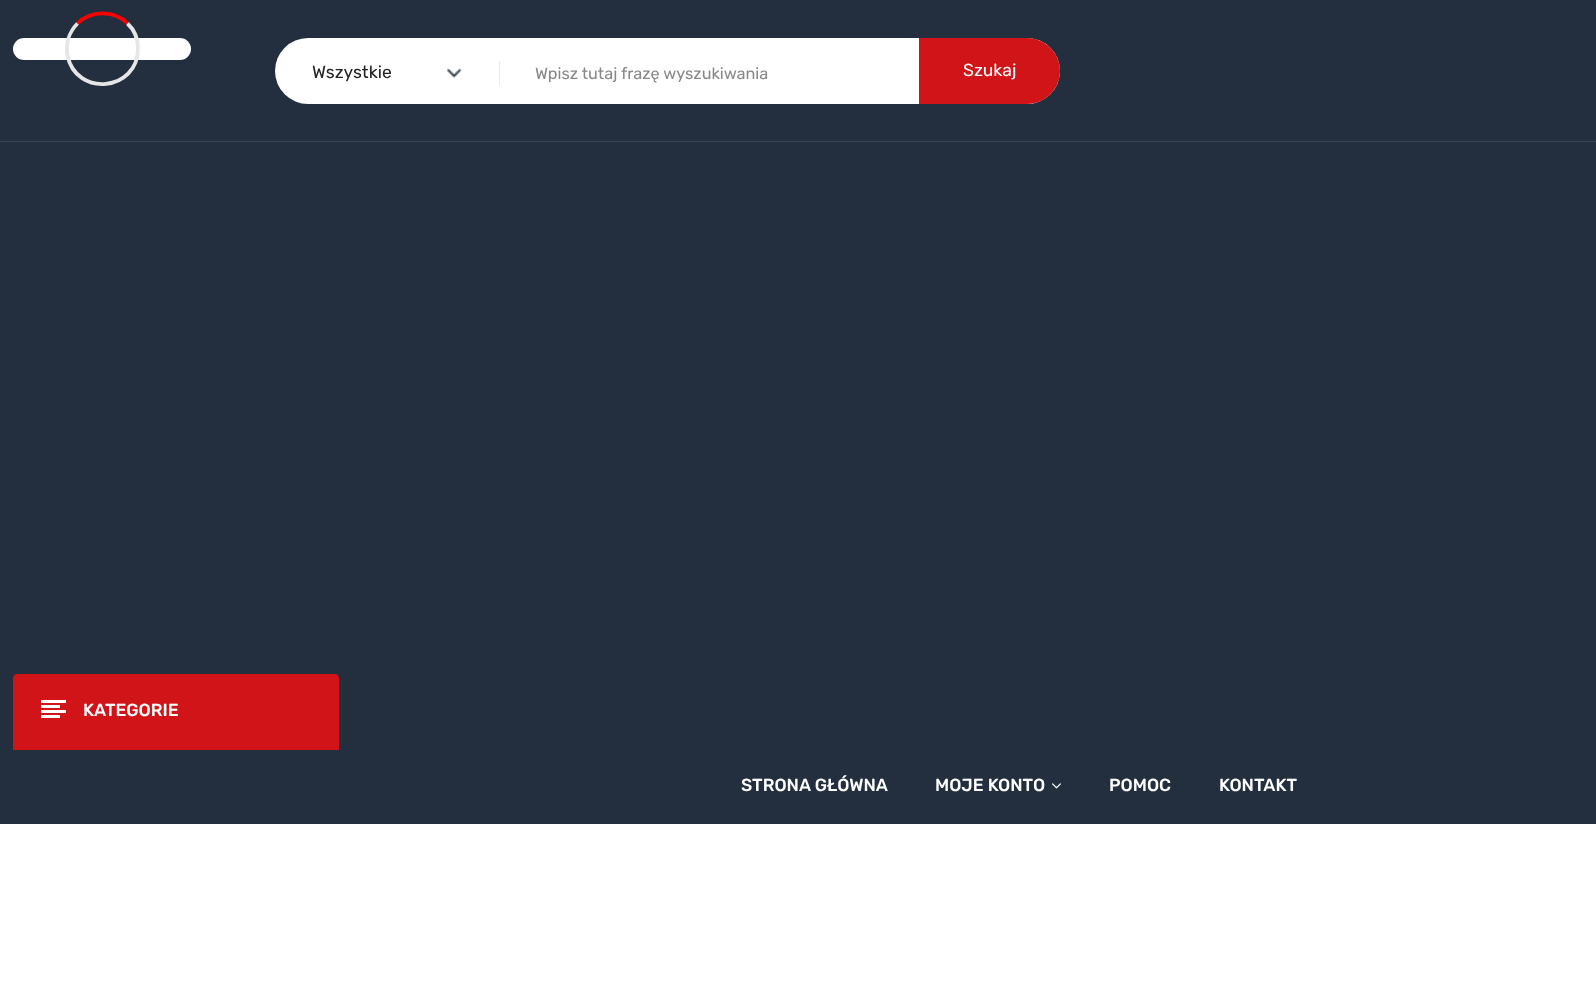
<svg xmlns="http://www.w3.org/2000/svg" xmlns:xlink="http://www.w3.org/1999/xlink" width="1596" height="1005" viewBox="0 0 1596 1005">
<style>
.cls-1{font:17.5px Rubik;fill:#222222}
.cls-2{font:16.25px Rubik;fill:#888888}
.cls-3{font:17.5px Rubik;fill:#ffffff}
.cls-4{font:500 17.5px Rubik;fill:#ffffff}
</style>
<rect width="100%" height="100%" fill="#ffffff"/>
<rect fill="#232f3e" x="0" y="0" width="1596" height="824"/>
<rect fill="#394451" x="0" y="141" width="1596" height="1"/>
<rect fill="#ffffff" x="13" y="38" width="178" height="22" rx="11"/>
<path fill="none" stroke="#ff0000" stroke-width="3.8" d="M77.5 23.5C91 10 114 10 127.5 23.5"/>
<path fill="none" stroke="#e6e6e6" stroke-width="3.8" d="M127.5 23.5C134.5 30 138 39.5 138 48.5C138 91.5 76 97.5 67.5 55.5C65.5 44 69 32 77.5 23.5"/>
<rect fill="#ffffff" x="275" y="38" width="785" height="66" rx="33"/>
<image xlink:href="image0.png" x="446" y="68" width="16" height="10"/>
<rect fill="#ebebeb" x="499" y="61" width="1" height="25"/>
<path fill="#d01418" d="M919 38H1027C1045 38 1060 53 1060 71C1060 89 1045 104 1027 104H919Z"/>
<path fill="#d01418" d="M17 674H335C337 674 339 676 339 678V750H13V678C13 676 15 674 17 674Z"/>
<rect fill="#ffffff" x="41" y="700" width="25" height="3"/>
<rect fill="#ffffff" x="41" y="705" width="19" height="3"/>
<rect fill="#ffffff" x="41" y="710" width="25" height="3"/>
<rect fill="#ffffff" x="41" y="715" width="19" height="3"/>
<image xlink:href="image1.png" x="1052" y="783" width="9" height="6"/>
<text class="cls-1" x="312" y="78">Wszystkie</text>
<text class="cls-2" x="535" y="79">Wpisz tutaj frazę wyszukiwania</text>
<text class="cls-3" x="963" y="76">Szukaj</text>
<text class="cls-4" x="83" y="716">KATEGORIE</text>
<text class="cls-4" x="741" y="791">STRONA GŁÓWNA</text>
<text class="cls-4" x="935" y="791">MOJE KONTO</text>
<text class="cls-4" x="1109" y="791">POMOC</text>
<text class="cls-4" x="1219" y="791">KONTAKT</text>
</svg>
